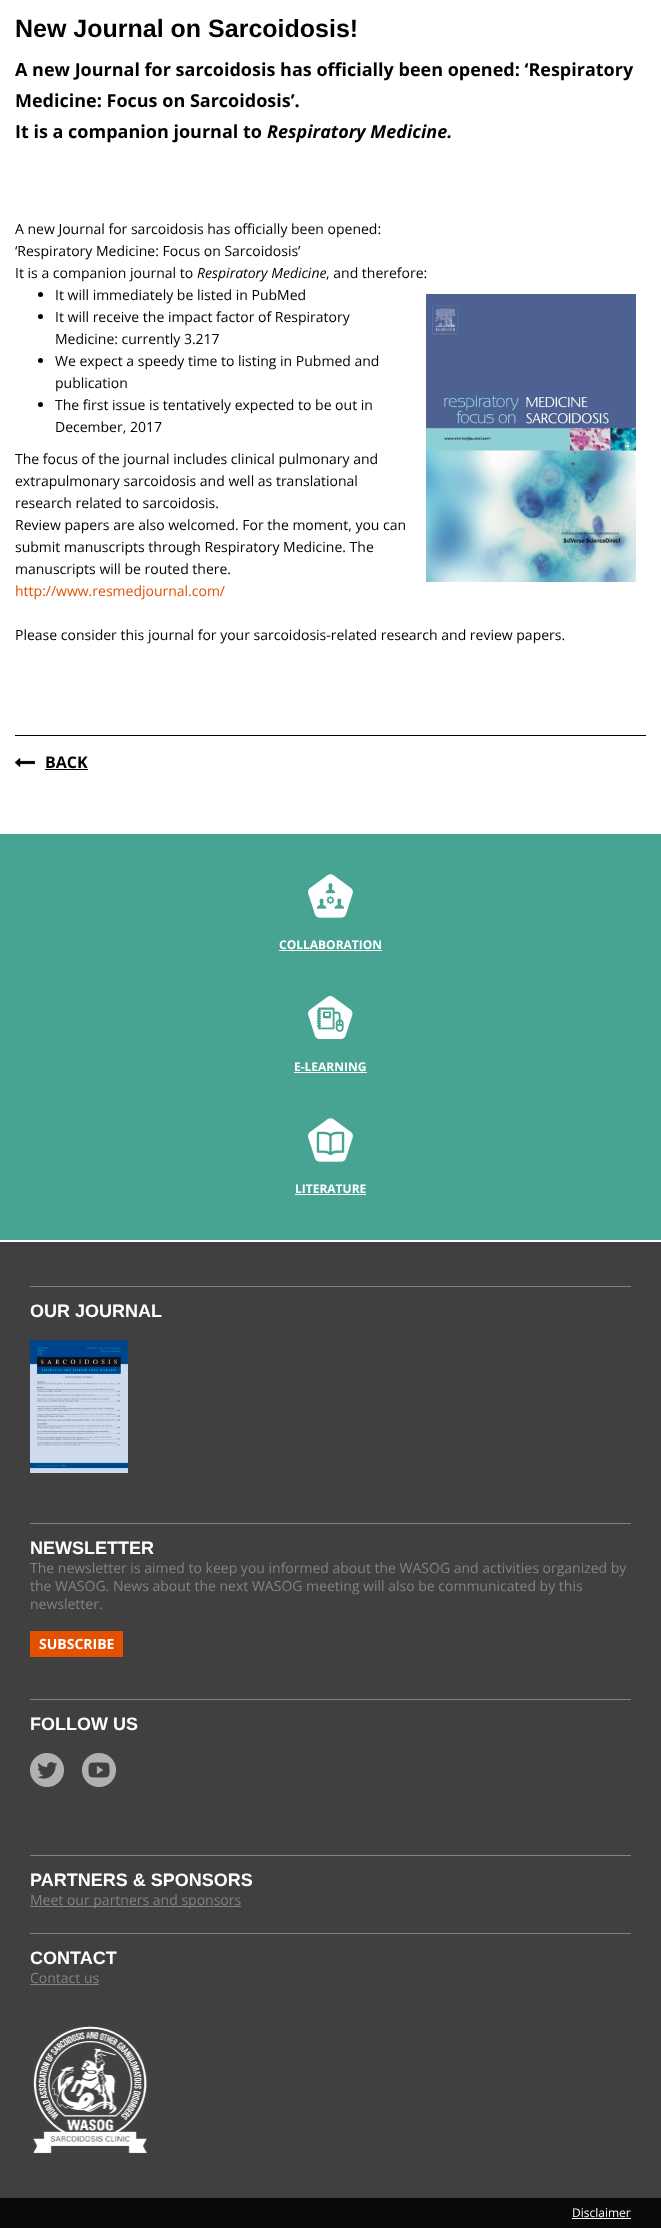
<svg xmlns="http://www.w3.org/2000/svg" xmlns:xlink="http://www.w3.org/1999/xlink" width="661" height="2228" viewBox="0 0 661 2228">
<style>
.cls-1{font:bold 25px Liberation Sans;fill:#000000}
.cls-2{font:bold 18px Open Sans;fill:#000000}
.cls-3{font:italic bold 18px Open Sans;fill:#000000}
.cls-4{font:14px Open Sans;fill:#000000}
.cls-5{font:italic 14px Open Sans;fill:#000000}
.cls-6{font:14px Open Sans;fill:#e25100}
.cls-7{font:bold 16px Open Sans;fill:#000000}
.cls-8{font:bold 12px Open Sans;fill:#ffffff}
.cls-9{font:bold 18px Liberation Sans;fill:#ffffff}
.cls-10{font:14px Open Sans;fill:#828284}
.cls-11{font:bold 14px Open Sans;fill:#ffffff}
.cls-12{font:12px Open Sans;fill:#ffffff}
</style>
<rect width="100%" height="100%" fill="#ffffff"/>
<image xlink:href="image0.png" x="426" y="294" width="210" height="288"/>
<circle fill="#000000" cx="40.5" cy="294.5" r="2.5"/>
<circle fill="#000000" cx="40.5" cy="316.5" r="2.5"/>
<circle fill="#000000" cx="40.5" cy="360.5" r="2.5"/>
<circle fill="#000000" cx="40.5" cy="404.5" r="2.5"/>
<rect fill="#000000" x="15" y="735" width="631" height="1"/>
<image xlink:href="image1.png" x="15" y="758" width="20" height="9"/>
<rect fill="#000000" x="45" y="769" width="43" height="1"/>
<rect fill="#48a492" x="0" y="834" width="661" height="406"/>
<image xlink:href="image2.png" x="308" y="874" width="45" height="44"/>
<rect fill="#ffffff" x="279" y="950" width="103" height="1"/>
<image xlink:href="image3.png" x="308" y="996" width="45" height="43"/>
<rect fill="#ffffff" x="294" y="1072" width="73" height="1"/>
<image xlink:href="image4.png" x="308" y="1118" width="45" height="44"/>
<rect fill="#ffffff" x="295" y="1194" width="71" height="1"/>
<rect fill="#404040" x="0" y="1242" width="661" height="956"/>
<rect fill="#828284" x="30" y="1286" width="601" height="1"/>
<image xlink:href="image5.png" x="30" y="1340" width="98" height="133"/>
<rect fill="#828284" x="30" y="1523" width="601" height="1"/>
<rect fill="#e35000" x="30" y="1631" width="93" height="26"/>
<rect fill="#828284" x="30" y="1699" width="601" height="1"/>
<image xlink:href="image6.png" x="30" y="1753" width="34" height="34"/>
<image xlink:href="image7.png" x="82" y="1753" width="34" height="34"/>
<rect fill="#828284" x="30" y="1855" width="601" height="1"/>
<rect fill="#828284" x="30" y="1906" width="211" height="1"/>
<rect fill="#828284" x="30" y="1933" width="601" height="1"/>
<rect fill="#828284" x="30" y="1984" width="69" height="1"/>
<image xlink:href="image8.png" x="33" y="2026" width="115" height="128"/>
<rect fill="#09090b" x="0" y="2198" width="661" height="30"/>
<rect fill="#ffffff" x="572" y="2218" width="59" height="1"/>
<text class="cls-1" x="15" y="37">New Journal on Sarcoidosis!</text>
<text class="cls-2"><tspan x="15" y="76">A new Journal for sarcoidosis has officially been opened: ‘Respiratory</tspan><tspan x="15" y="107">Medicine: Focus on Sarcoidosis’.</tspan><tspan x="15" y="138">It is a companion journal to</tspan></text>
<text class="cls-3" x="267" y="138">Respiratory Medicine.</text>
<text class="cls-4"><tspan x="15" y="234">A new Journal for sarcoidosis has officially been opened:</tspan><tspan x="15" y="256">‘Respiratory Medicine: Focus on Sarcoidosis’</tspan><tspan x="15" y="278">It is a companion journal to</tspan></text>
<text class="cls-5" x="197" y="278">Respiratory Medicine</text>
<text class="cls-4" x="326" y="278">, and therefore:</text>
<text class="cls-4"><tspan x="55" y="300">It will immediately be listed in PubMed</tspan><tspan x="55" y="322">It will receive the impact factor of Respiratory</tspan><tspan x="55" y="344">Medicine: currently 3.217</tspan><tspan x="55" y="366">We expect a speedy time to listing in Pubmed and</tspan><tspan x="55" y="388">publication</tspan><tspan x="55" y="410">The first issue is tentatively expected to be out in</tspan><tspan x="55" y="432">December, 2017</tspan></text>
<text class="cls-4"><tspan x="15" y="464">The focus of the journal includes clinical pulmonary and</tspan><tspan x="15" y="486">extrapulmonary sarcoidosis and well as translational</tspan><tspan x="15" y="508">research related to sarcoidosis.</tspan><tspan x="15" y="530">Review papers are also welcomed. For the moment, you can</tspan><tspan x="15" y="552">submit manuscripts through Respiratory Medicine. The</tspan><tspan x="15" y="574">manuscripts will be routed there.</tspan></text>
<text class="cls-6" x="15" y="596">http://www.resmedjournal.com/</text>
<text class="cls-4" x="15" y="640">Please consider this journal for your sarcoidosis-related research and review papers.</text>
<text class="cls-7" x="45" y="768">BACK</text>
<text class="cls-8" x="279" y="949">COLLABORATION</text>
<text class="cls-8" x="294" y="1071">E-LEARNING</text>
<text class="cls-8" x="295" y="1193">LITERATURE</text>
<text class="cls-9" x="30" y="1317">OUR JOURNAL</text>
<text class="cls-9" x="30" y="1554">NEWSLETTER</text>
<text class="cls-10"><tspan x="30" y="1573">The newsletter is aimed to keep you informed about the WASOG and activities organized by</tspan><tspan x="30" y="1591">the WASOG. News about the next WASOG meeting will also be communicated by this</tspan><tspan x="30" y="1609">newsletter.</tspan></text>
<text class="cls-11" x="39" y="1649">SUBSCRIBE</text>
<text class="cls-9" x="30" y="1730">FOLLOW US</text>
<text class="cls-9" x="30" y="1886">PARTNERS &amp; SPONSORS</text>
<text class="cls-10" x="30" y="1905">Meet our partners and sponsors</text>
<text class="cls-9" x="30" y="1964">CONTACT</text>
<text class="cls-10" x="30" y="1983">Contact us</text>
<text class="cls-12" x="572" y="2217">Disclaimer</text>
</svg>
